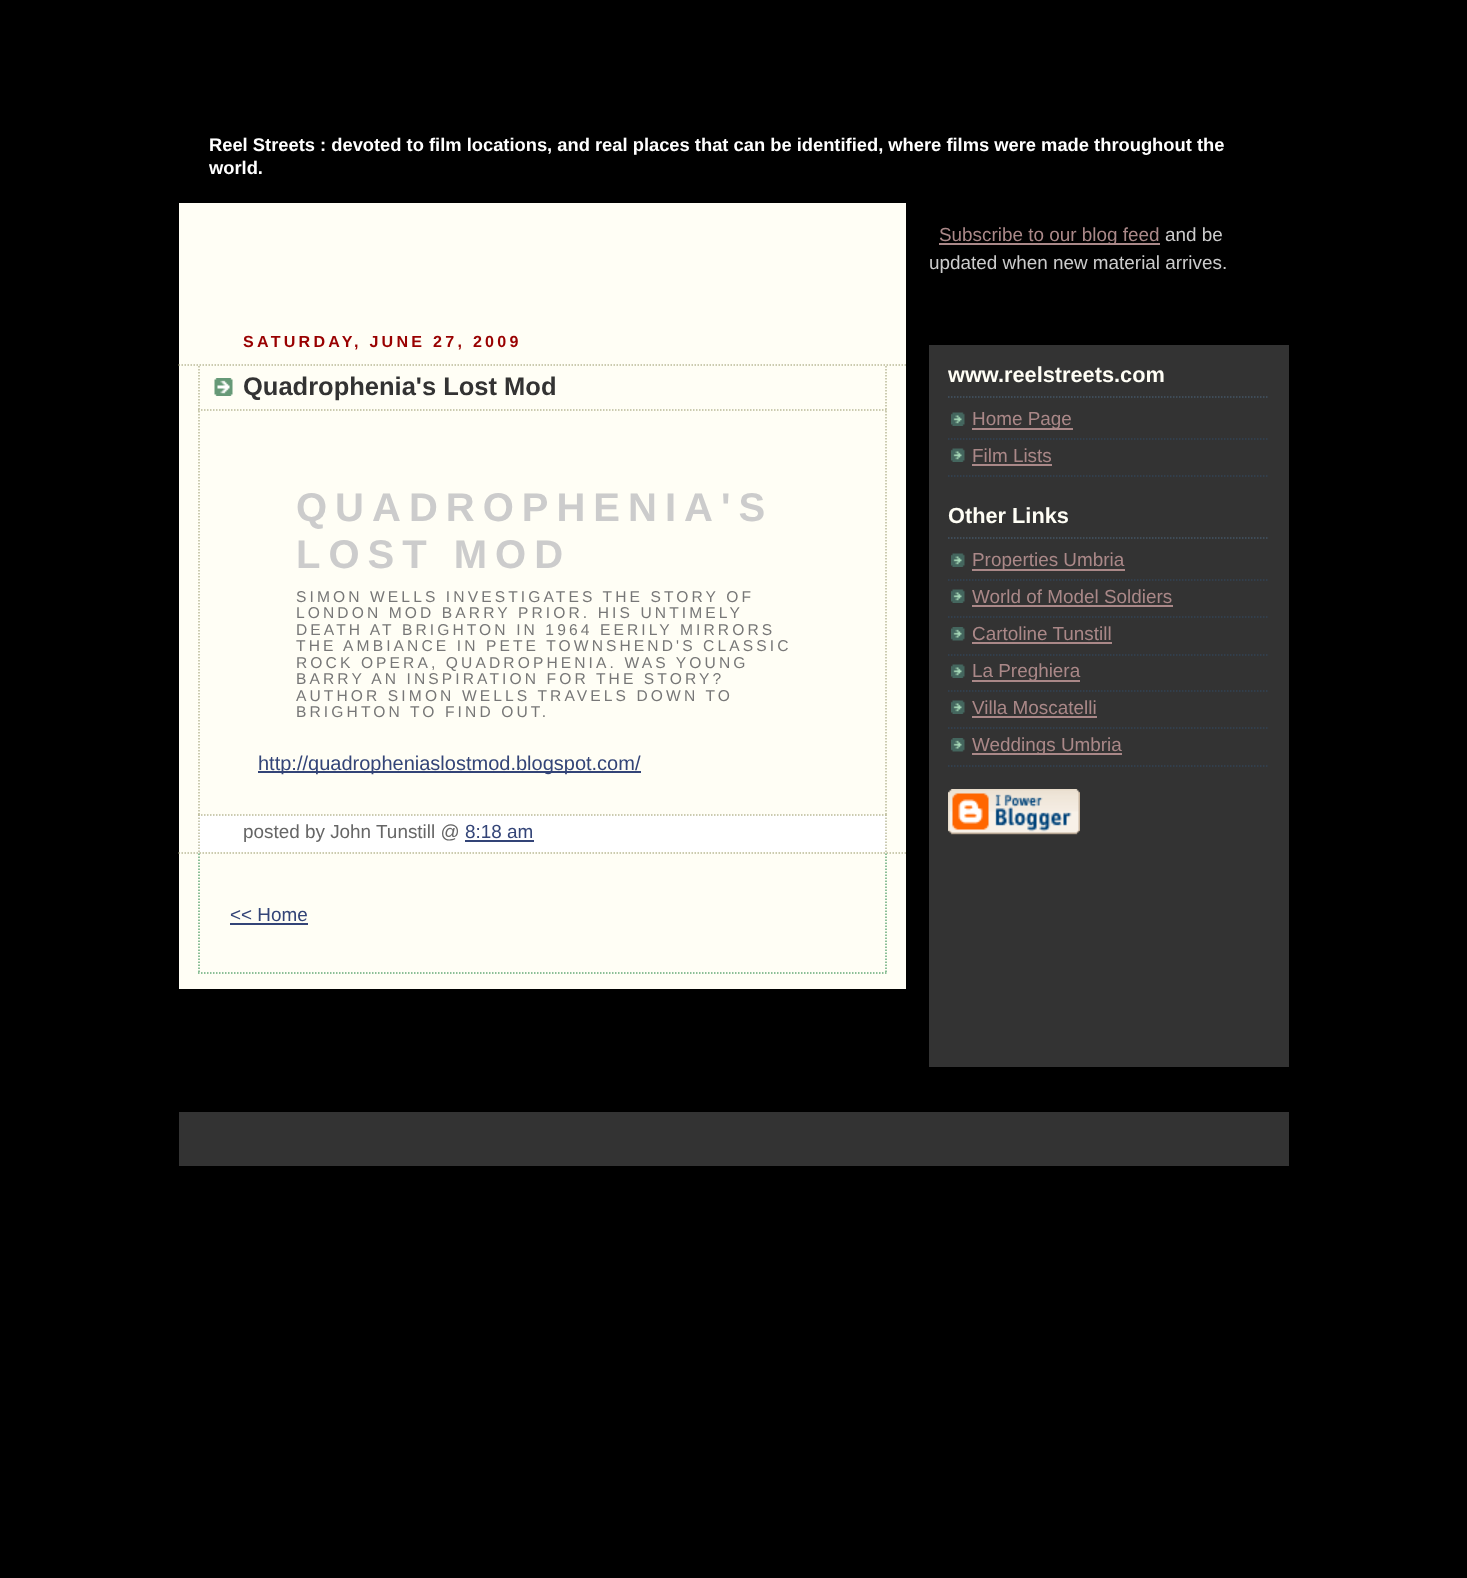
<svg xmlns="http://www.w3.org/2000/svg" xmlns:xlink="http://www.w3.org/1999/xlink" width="1467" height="1578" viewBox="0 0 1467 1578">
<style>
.cls-1{font:bold 18.33px Liberation Sans;fill:#ffffff}
.cls-2{font:bold 16.1px Liberation Sans;letter-spacing:3.25px;fill:#990000}
.cls-3{font:bold 25.5px Liberation Sans;fill:#333333}
.cls-4{font:bold 40px Liberation Sans;letter-spacing:8px;fill:#cccccc}
.cls-5{font:15.6px Liberation Sans;letter-spacing:3.1px;fill:#777777}
.cls-6{font:20px Liberation Sans;fill:#334477}
.cls-7{font:18.9px Liberation Sans;fill:#666666}
.cls-8{font:18.9px Liberation Sans;fill:#334477}
.cls-9{font:18.9px Liberation Sans;fill:#aa8888}
.cls-10{font:18.9px Liberation Sans;fill:#cccccc}
.cls-11{font:bold 21.75px Liberation Sans;fill:#fffef5}
</style>
<rect width="100%" height="100%" fill="#000000"/>
<rect fill="#fffef5" x="179" y="203" width="727" height="786"/>
<path fill="none" stroke="#bbbb99" stroke-width="1.5" stroke-dasharray="1.5 1.5" d="M178.5 365H906"/>
<path fill="none" stroke="#bbbb99" stroke-width="1.5" stroke-dasharray="1.5 1.5" d="M178.5 853H906"/>
<image xlink:href="image0.png" x="214" y="378" width="19" height="18"/>
<path fill="none" stroke="#bbbb99" stroke-width="1.5" stroke-dasharray="1.5 1.5" d="M886 366V411"/>
<path fill="none" stroke="#bbbb99" stroke-width="1.5" stroke-dasharray="1.5 1.5" d="M198 410H886.5"/>
<path fill="none" stroke="#bbbb99" stroke-width="1.5" stroke-dasharray="1.5 1.5" d="M199 366V411"/>
<path fill="none" stroke="#bbbb99" stroke-width="1.5" stroke-dasharray="1.5 1.5" d="M886 411V814.5"/>
<path fill="none" stroke="#bbbb99" stroke-width="1.5" stroke-dasharray="1.5 1.5" d="M199 411V814.5"/>
<rect fill="#334477" x="258" y="771" width="383" height="2"/>
<rect fill="#ffffff" x="198" y="815" width="689" height="37"/>
<path fill="none" stroke="#bbbb99" stroke-width="1.5" stroke-dasharray="1.5 1.5" d="M198 815H886.5"/>
<path fill="none" stroke="#bbbb99" stroke-width="1.5" stroke-dasharray="1.5 1.5" d="M886 814.5V852"/>
<path fill="none" stroke="#bbbb99" stroke-width="1.5" stroke-dasharray="1.5 1.5" d="M199 814.5V852"/>
<rect fill="#334477" x="465" y="840" width="69" height="2"/>
<path fill="none" stroke="#66aa77" stroke-width="1.5" stroke-dasharray="1.5 1.5" d="M886 853.5V973.5"/>
<path fill="none" stroke="#66aa77" stroke-width="1.5" stroke-dasharray="1.5 1.5" d="M198 973H886.5"/>
<path fill="none" stroke="#66aa77" stroke-width="1.5" stroke-dasharray="1.5 1.5" d="M199 853.5V973.5"/>
<rect fill="#334477" x="230" y="923" width="78" height="2"/>
<rect fill="#aa8888" x="939" y="243" width="221" height="2"/>
<rect fill="#333333" x="929" y="345" width="360" height="722"/>
<path fill="none" stroke="#445566" stroke-width="1.5" stroke-dasharray="1.5 1.5" d="M948 397H1269"/>
<image xlink:href="image1.png" x="951" y="412" width="14" height="14"/>
<path fill="none" stroke="#334455" stroke-width="1.5" stroke-dasharray="1.5 1.5" d="M948 439H1269"/>
<rect fill="#aa8888" x="972" y="428" width="101" height="2"/>
<image xlink:href="image1.png" x="951" y="448" width="14" height="14"/>
<path fill="none" stroke="#334455" stroke-width="1.5" stroke-dasharray="1.5 1.5" d="M948 476H1269"/>
<rect fill="#aa8888" x="972" y="464" width="80" height="2"/>
<path fill="none" stroke="#445566" stroke-width="1.5" stroke-dasharray="1.5 1.5" d="M948 538H1269"/>
<image xlink:href="image1.png" x="951" y="553" width="14" height="14"/>
<path fill="none" stroke="#334455" stroke-width="1.5" stroke-dasharray="1.5 1.5" d="M948 580H1269"/>
<rect fill="#aa8888" x="972" y="569" width="153" height="2"/>
<image xlink:href="image1.png" x="951" y="589" width="14" height="14"/>
<path fill="none" stroke="#334455" stroke-width="1.5" stroke-dasharray="1.5 1.5" d="M948 617H1269"/>
<rect fill="#aa8888" x="972" y="605" width="201" height="2"/>
<image xlink:href="image2.png" x="951" y="627" width="14" height="14"/>
<path fill="none" stroke="#334455" stroke-width="1.5" stroke-dasharray="1.5 1.5" d="M948 655H1269"/>
<rect fill="#aa8888" x="972" y="642" width="140" height="2"/>
<image xlink:href="image1.png" x="951" y="664" width="14" height="14"/>
<path fill="none" stroke="#334455" stroke-width="1.5" stroke-dasharray="1.5 1.5" d="M948 691H1269"/>
<rect fill="#aa8888" x="972" y="680" width="108" height="2"/>
<image xlink:href="image1.png" x="951" y="700" width="14" height="14"/>
<path fill="none" stroke="#334455" stroke-width="1.5" stroke-dasharray="1.5 1.5" d="M948 728H1269"/>
<rect fill="#aa8888" x="972" y="716" width="125" height="2"/>
<image xlink:href="image2.png" x="951" y="738" width="14" height="14"/>
<path fill="none" stroke="#334455" stroke-width="1.5" stroke-dasharray="1.5 1.5" d="M948 766H1269"/>
<rect fill="#aa8888" x="972" y="753" width="150" height="2"/>
<image xlink:href="image3.png" x="948" y="789" width="132" height="46"/>
<rect fill="#333333" x="179" y="1112" width="1110" height="54"/>
<text class="cls-1"><tspan x="209" y="151">Reel Streets : devoted to film locations, and real places that can be identified, where films were made throughout the</tspan><tspan x="209" y="174">world.</tspan></text>
<text class="cls-2" x="243" y="347">SATURDAY, JUNE 27, 2009</text>
<text class="cls-3" x="243" y="395">Quadrophenia's Lost Mod</text>
<text class="cls-4"><tspan x="296" y="521">QUADROPHENIA'S</tspan><tspan x="296" y="568">LOST MOD</tspan></text>
<text class="cls-5"><tspan x="296" y="602">SIMON WELLS INVESTIGATES THE STORY OF</tspan><tspan x="296" y="618">LONDON MOD BARRY PRIOR. HIS UNTIMELY</tspan><tspan x="296" y="635">DEATH AT BRIGHTON IN 1964 EERILY MIRRORS</tspan><tspan x="296" y="651">THE AMBIANCE IN PETE TOWNSHEND'S CLASSIC</tspan><tspan x="296" y="668">ROCK OPERA, QUADROPHENIA. WAS YOUNG</tspan><tspan x="296" y="684">BARRY AN INSPIRATION FOR THE STORY?</tspan><tspan x="296" y="701">AUTHOR SIMON WELLS TRAVELS DOWN TO</tspan><tspan x="296" y="717">BRIGHTON TO FIND OUT.</tspan></text>
<text class="cls-6" x="258" y="770">http://quadropheniaslostmod.blogspot.com/</text>
<text class="cls-7" x="243" y="838">posted by John Tunstill @</text>
<text class="cls-8" x="465" y="838">8:18 am</text>
<text class="cls-8" x="230" y="921">&lt;&lt; Home</text>
<text class="cls-9" x="939" y="241">Subscribe to our blog feed</text>
<text class="cls-10" x="1165" y="241">and be</text>
<text class="cls-10" x="929" y="269">updated when new material arrives.</text>
<text class="cls-11" x="948" y="382">www.reelstreets.com</text>
<text class="cls-9"><tspan x="972" y="425">Home Page</tspan><tspan x="972" y="462">Film Lists</tspan></text>
<text class="cls-11" x="948" y="523">Other Links</text>
<text class="cls-9"><tspan x="972" y="566">Properties Umbria</tspan><tspan x="972" y="603">World of Model Soldiers</tspan><tspan x="972" y="640">Cartoline Tunstill</tspan><tspan x="972" y="677">La Preghiera</tspan><tspan x="972" y="714">Villa Moscatelli</tspan><tspan x="972" y="751">Weddings Umbria</tspan></text>
</svg>
